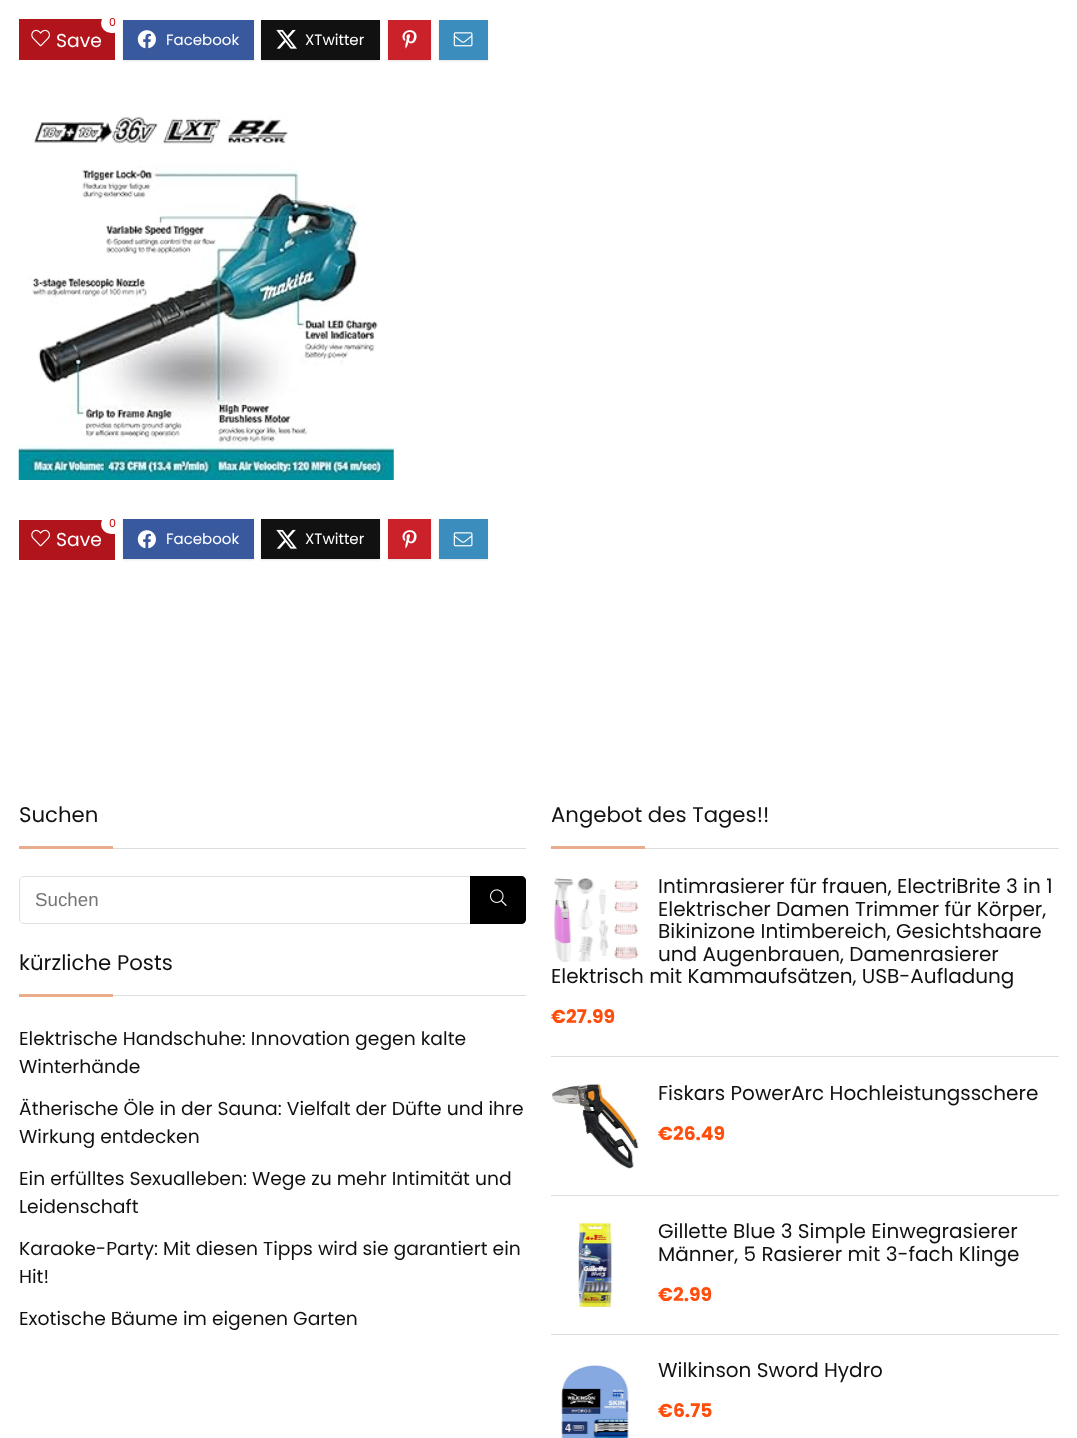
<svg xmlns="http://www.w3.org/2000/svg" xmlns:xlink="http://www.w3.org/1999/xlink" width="1077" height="1438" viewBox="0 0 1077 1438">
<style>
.cls-1{font:11px Poppins;fill:#cc0000}
.cls-2{font:18.75px Poppins;fill:#ffffff}
.cls-3{font:15px Poppins;fill:#ffffff}
.cls-4{font:21.25px Poppins;fill:#111111}
.cls-5{font:18.75px Liberation Sans;fill:#757575}
.cls-6{font:20px Poppins;fill:#111111}
.cls-7{font:bold 18.75px Poppins;fill:#ff4e0c}
.cls-8{font:18.75px Poppins;fill:#111111}
</style>
<defs>
<clipPath id="clip1"><rect x="19" y="15" width="1040" height="53"/></clipPath>
</defs>
<rect width="100%" height="100%" fill="#ffffff"/>
<rect fill="#b1141a" x="19" y="19" width="96" height="41"/>
<g clip-path="url(#clip1)">
<rect fill="#ffffff" x="101" y="13" width="23" height="20" rx="10"/>
</g>
<image xlink:href="image0.png" x="31" y="29" width="19" height="18"/>
<rect fill="#e4e4e4" filter="blur(1px)" x="123" y="21" width="131" height="40"/>
<rect fill="#39599f" x="123" y="20" width="131" height="40"/>
<image xlink:href="image1.png" x="137" y="30" width="19" height="19"/>
<rect fill="#e4e4e4" filter="blur(1px)" x="261" y="21" width="119" height="40"/>
<rect fill="#111111" x="261" y="20" width="119" height="40"/>
<image xlink:href="image2.png" x="276" y="29" width="21" height="20"/>
<rect fill="#e4e4e4" filter="blur(1px)" x="388" y="21" width="43" height="40"/>
<rect fill="#ca212a" x="388" y="20" width="43" height="40"/>
<image xlink:href="image3.png" x="402" y="30" width="15" height="19"/>
<rect fill="#e4e4e4" filter="blur(1px)" x="439" y="21" width="49" height="40"/>
<rect fill="#3b8dbd" x="439" y="20" width="49" height="40"/>
<image xlink:href="image4.png" x="453" y="32" width="20" height="15"/>
<image xlink:href="image5.png" x="18" y="115" width="376" height="365"/>
<rect fill="#b1141a" x="19" y="520" width="96" height="40"/>
<rect fill="#ffffff" x="101" y="514" width="23" height="20" rx="10"/>
<image xlink:href="image0.png" x="31" y="529" width="19" height="18"/>
<rect fill="#e4e4e4" filter="blur(1px)" x="123" y="520" width="131" height="40"/>
<rect fill="#39599f" x="123" y="519" width="131" height="40"/>
<image xlink:href="image1.png" x="137" y="530" width="19" height="19"/>
<rect fill="#e4e4e4" filter="blur(1px)" x="261" y="520" width="119" height="40"/>
<rect fill="#111111" x="261" y="519" width="119" height="40"/>
<image xlink:href="image2.png" x="276" y="529" width="21" height="20"/>
<rect fill="#e4e4e4" filter="blur(1px)" x="388" y="520" width="43" height="40"/>
<rect fill="#ca212a" x="388" y="519" width="43" height="40"/>
<image xlink:href="image3.png" x="402" y="530" width="15" height="19"/>
<rect fill="#e4e4e4" filter="blur(1px)" x="439" y="520" width="49" height="40"/>
<rect fill="#3b8dbd" x="439" y="519" width="49" height="40"/>
<image xlink:href="image4.png" x="453" y="532" width="20" height="15"/>
<rect fill="#dddddd" x="113" y="848" width="413" height="1"/>
<rect fill="#e9ad8d" x="19" y="846" width="94" height="3"/>
<rect fill="none" stroke="#e1e1e1" x="19.5" y="876.5" width="506" height="47" rx="4.5"/>
<path fill="#000000" d="M470 876H521C524 876 526 878 526 881V919C526 922 524 924 521 924H470Z"/>
<image xlink:href="image6.png" x="490" y="889" width="17" height="17"/>
<rect fill="#dddddd" x="645" y="848" width="414" height="1"/>
<rect fill="#e9ad8d" x="551" y="846" width="94" height="3"/>
<rect fill="#dddddd" x="551" y="1056" width="508" height="1"/>
<image xlink:href="image7.png" x="554" y="878" width="85" height="84"/>
<rect fill="#dddddd" x="551" y="1195" width="508" height="1"/>
<image xlink:href="image8.png" x="552" y="1082" width="87" height="87"/>
<rect fill="#dddddd" x="551" y="1334" width="508" height="1"/>
<image xlink:href="image9.png" x="578" y="1222" width="35" height="86"/>
<image xlink:href="image10.png" x="561" y="1365" width="68" height="73"/>
<rect fill="#dddddd" x="113" y="995" width="413" height="1"/>
<rect fill="#e9ad8d" x="19" y="994" width="94" height="3"/>
<text class="cls-1" x="109" y="26">0</text>
<text class="cls-2" x="56" y="47">Save</text>
<text class="cls-3" x="166" y="45">Facebook</text>
<text class="cls-3" x="305" y="45">XTwitter</text>
<text class="cls-1" x="109" y="527">0</text>
<text class="cls-2" x="56" y="546">Save</text>
<text class="cls-3" x="166" y="544">Facebook</text>
<text class="cls-3" x="305" y="544">XTwitter</text>
<text class="cls-4" x="19" y="822">Suchen</text>
<text class="cls-5" x="35" y="906">Suchen</text>
<text class="cls-4" x="551" y="822">Angebot des Tages!!</text>
<text class="cls-6"><tspan x="658" y="893">Intimrasierer für frauen, ElectriBrite 3 in 1</tspan><tspan x="658" y="916">Elektrischer Damen Trimmer für Körper,</tspan><tspan x="658" y="938">Bikinizone Intimbereich, Gesichtshaare</tspan><tspan x="658" y="961">und Augenbrauen, Damenrasierer</tspan></text>
<text class="cls-6" x="551" y="983">Elektrisch mit Kammaufsätzen, USB-Aufladung</text>
<text class="cls-7" x="551" y="1023">€27.99</text>
<text class="cls-6" x="658" y="1100">Fiskars PowerArc Hochleistungsschere</text>
<text class="cls-7" x="658" y="1140">€26.49</text>
<text class="cls-6"><tspan x="658" y="1238">Gillette Blue 3 Simple Einwegrasierer</tspan><tspan x="658" y="1261">Männer, 5 Rasierer mit 3-fach Klinge</tspan></text>
<text class="cls-7" x="658" y="1301">€2.99</text>
<text class="cls-6" x="658" y="1377">Wilkinson Sword Hydro</text>
<text class="cls-7" x="658" y="1417">€6.75</text>
<text class="cls-4" x="19" y="970">kürzliche Posts</text>
<text class="cls-8"><tspan x="19" y="1045">Elektrische Handschuhe: Innovation gegen kalte</tspan><tspan x="19" y="1073">Winterhände</tspan></text>
<text class="cls-8"><tspan x="19" y="1115">Ätherische Öle in der Sauna: Vielfalt der Düfte und ihre</tspan><tspan x="19" y="1143">Wirkung entdecken</tspan></text>
<text class="cls-8"><tspan x="19" y="1185">Ein erfülltes Sexualleben: Wege zu mehr Intimität und</tspan><tspan x="19" y="1213">Leidenschaft</tspan></text>
<text class="cls-8"><tspan x="19" y="1255">Karaoke-Party: Mit diesen Tipps wird sie garantiert ein</tspan><tspan x="19" y="1283">Hit!</tspan></text>
<text class="cls-8" x="19" y="1325">Exotische Bäume im eigenen Garten</text>
</svg>
